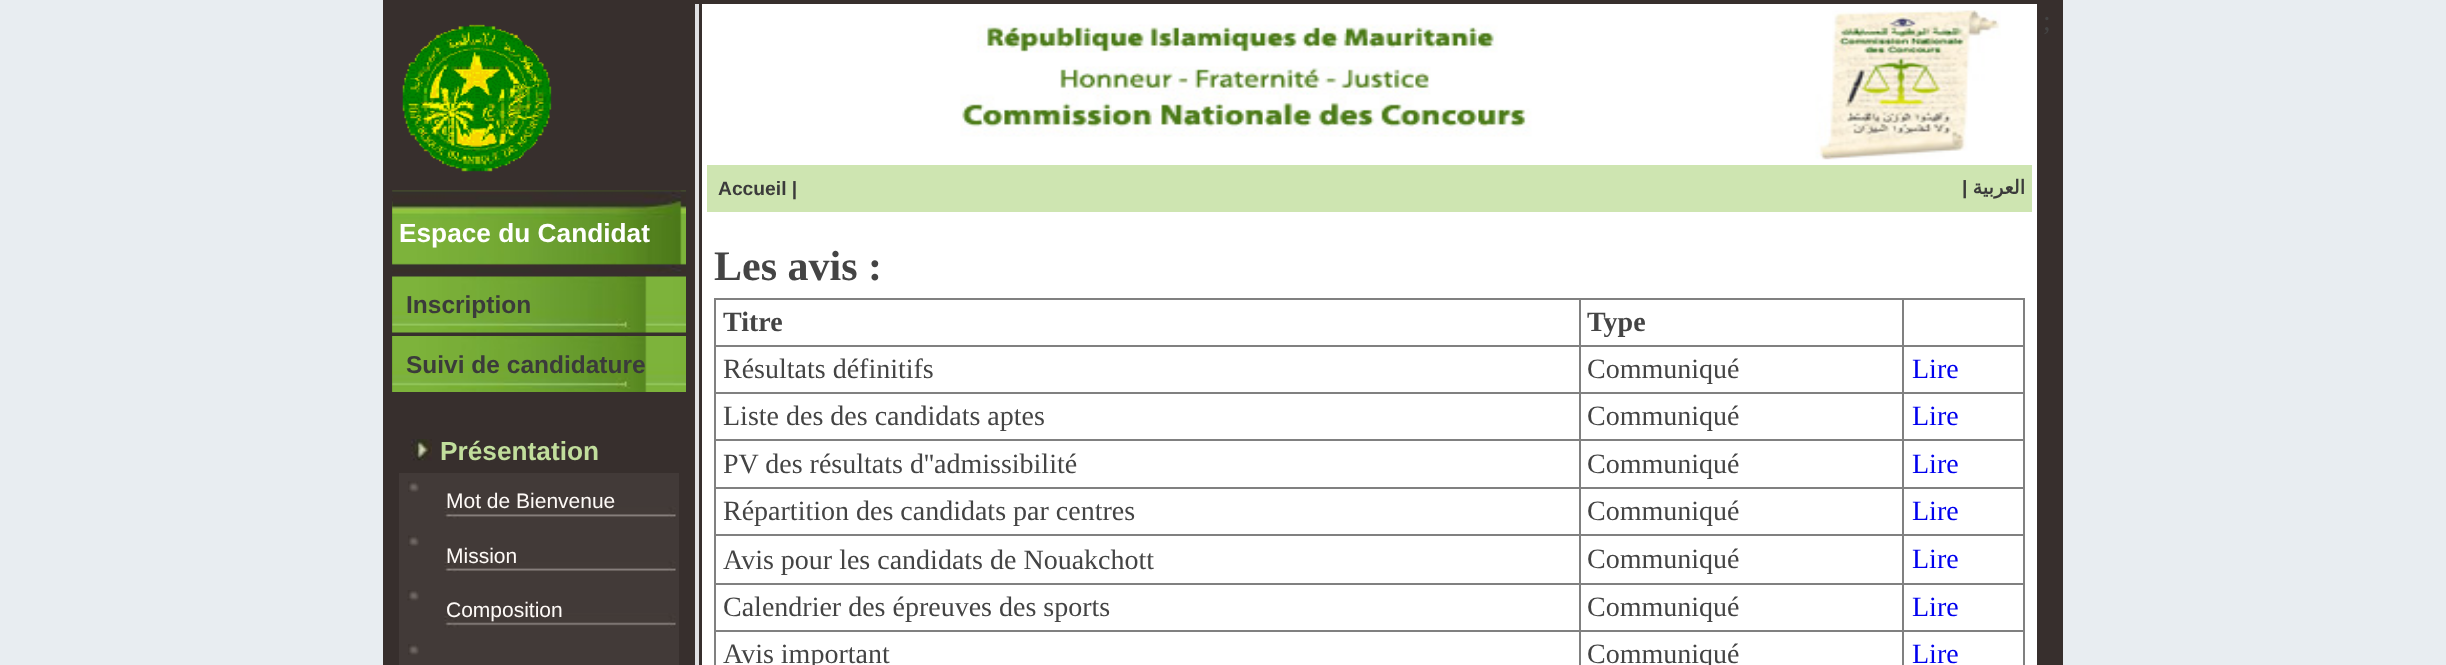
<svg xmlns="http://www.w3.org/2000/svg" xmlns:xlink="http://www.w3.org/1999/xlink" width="2446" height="665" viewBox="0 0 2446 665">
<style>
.cls-1{font:28px Liberation Serif;fill:#444444}
.cls-2{font:bold 26.25px Liberation Sans;fill:#ffffff}
.cls-3{font:bold 24.5px Liberation Sans;fill:#3b3b3b}
.cls-4{font:bold 26.25px Liberation Sans;fill:#c1de9c}
.cls-5{font:21px Liberation Sans;fill:#fefaf7}
.cls-6{font:bold 19.25px Liberation Sans;fill:#3b3b3b}
.cls-7{font:bold 19.25px DejaVu Sans;direction:rtl;fill:#3b3b3b}
.cls-8{font:bold 42px Liberation Serif;fill:#444444}
.cls-9{font:bold 28px Liberation Serif;fill:#444444}
.cls-10{font:28px Liberation Serif;fill:#0000ee}
</style>
<rect width="100%" height="100%" fill="#e8edf1"/>
<rect fill="#372f2d" x="383" y="0" width="1680" height="665"/>
<rect fill="#e0e1e3" x="695" y="4" width="4" height="661"/>
<image xlink:href="image0.png" x="402" y="24" width="150" height="148"/>
<image xlink:href="image1.png" x="392" y="190" width="294" height="83"/>
<image xlink:href="image2.png" x="392" y="276" width="294" height="57"/>
<image xlink:href="image3.png" x="392" y="336" width="294" height="56"/>
<image xlink:href="image4.png" x="411" y="439" width="21" height="22"/>
<rect fill="#423a38" x="399" y="473" width="280" height="192"/>
<image xlink:href="image5.png" x="408" y="481" width="11" height="11"/>
<image xlink:href="image6.png" x="444" y="506" width="232" height="13"/>
<image xlink:href="image7.png" x="408" y="535" width="11" height="11"/>
<image xlink:href="image8.png" x="444" y="560" width="232" height="12"/>
<image xlink:href="image9.png" x="407" y="590" width="12" height="11"/>
<image xlink:href="image10.png" x="444" y="613" width="232" height="15"/>
<image xlink:href="image11.png" x="408" y="644" width="11" height="11"/>
<rect fill="#ffffff" x="702" y="4" width="1335" height="661"/>
<image xlink:href="image12.png" x="960" y="10" width="1041" height="150"/>
<rect fill="#cee5b1" x="707" y="165" width="1325" height="47"/>
<rect fill="#808080" x="714" y="298" width="1311" height="2"/>
<rect fill="#808080" x="2023" y="298" width="2" height="367"/>
<rect fill="#808080" x="714" y="298" width="2" height="367"/>
<rect fill="#808080" x="1902" y="345" width="123" height="2"/>
<rect fill="#808080" x="1902" y="392" width="123" height="2"/>
<rect fill="#808080" x="1902" y="439" width="123" height="2"/>
<rect fill="#808080" x="1902" y="487" width="123" height="2"/>
<rect fill="#808080" x="1902" y="534" width="123" height="2"/>
<rect fill="#808080" x="1902" y="583" width="123" height="2"/>
<rect fill="#808080" x="1902" y="630" width="123" height="2"/>
<rect fill="#808080" x="1902" y="630" width="2" height="35"/>
<rect fill="#808080" x="1579" y="630" width="325" height="2"/>
<rect fill="#808080" x="1902" y="583" width="2" height="49"/>
<rect fill="#808080" x="1579" y="583" width="325" height="2"/>
<rect fill="#808080" x="1902" y="534" width="2" height="51"/>
<rect fill="#808080" x="1579" y="534" width="325" height="2"/>
<rect fill="#808080" x="1902" y="487" width="2" height="49"/>
<rect fill="#808080" x="1579" y="487" width="325" height="2"/>
<rect fill="#808080" x="1902" y="439" width="2" height="49"/>
<rect fill="#808080" x="1579" y="439" width="325" height="2"/>
<rect fill="#808080" x="1902" y="392" width="2" height="49"/>
<rect fill="#808080" x="1579" y="392" width="325" height="2"/>
<rect fill="#808080" x="1902" y="345" width="2" height="49"/>
<rect fill="#808080" x="1579" y="345" width="325" height="2"/>
<rect fill="#808080" x="1579" y="630" width="2" height="35"/>
<rect fill="#808080" x="714" y="630" width="866" height="2"/>
<rect fill="#808080" x="1579" y="583" width="2" height="49"/>
<rect fill="#808080" x="714" y="583" width="866" height="2"/>
<rect fill="#808080" x="1579" y="534" width="2" height="51"/>
<rect fill="#808080" x="714" y="534" width="866" height="2"/>
<rect fill="#808080" x="1579" y="487" width="2" height="49"/>
<rect fill="#808080" x="714" y="487" width="866" height="2"/>
<rect fill="#808080" x="1579" y="439" width="2" height="49"/>
<rect fill="#808080" x="714" y="439" width="866" height="2"/>
<rect fill="#808080" x="1579" y="392" width="2" height="49"/>
<rect fill="#808080" x="714" y="392" width="866" height="2"/>
<rect fill="#808080" x="1579" y="345" width="2" height="49"/>
<rect fill="#808080" x="714" y="345" width="866" height="2"/>
<rect fill="#808080" x="1579" y="298" width="2" height="49"/>
<rect fill="#808080" x="1902" y="298" width="2" height="49"/>
<text class="cls-1" x="2043" y="30">;</text>
<text class="cls-2" x="399" y="242">Espace du Candidat</text>
<text class="cls-3" x="406" y="313">Inscription</text>
<text class="cls-3" x="406" y="373">Suivi de candidature</text>
<text class="cls-4" x="440" y="460">Présentation</text>
<text class="cls-5" x="446" y="508">Mot de Bienvenue</text>
<text class="cls-5" x="446" y="563">Mission</text>
<text class="cls-5" x="446" y="617">Composition</text>
<text class="cls-6" x="718" y="195">Accueil |</text>
<text class="cls-6" x="1962" y="194">|</text>
<text class="cls-7" x="2025" y="194">العربية</text>
<text class="cls-8" x="714" y="280">Les avis :</text>
<text class="cls-9" x="723" y="331">Titre</text>
<text class="cls-9" x="1587" y="331">Type</text>
<text class="cls-1" x="723" y="378">Résultats définitifs</text>
<text class="cls-1" x="1587" y="378">Communiqué</text>
<text class="cls-10" x="1912" y="378">Lire</text>
<text class="cls-1" x="723" y="425">Liste des des candidats aptes</text>
<text class="cls-1" x="1587" y="425">Communiqué</text>
<text class="cls-10" x="1912" y="425">Lire</text>
<text class="cls-1" x="723" y="473">PV des résultats d''admissibilité</text>
<text class="cls-1" x="1587" y="473">Communiqué</text>
<text class="cls-10" x="1912" y="473">Lire</text>
<text class="cls-1" x="723" y="520">Répartition des candidats par centres</text>
<text class="cls-1" x="1587" y="520">Communiqué</text>
<text class="cls-10" x="1912" y="520">Lire</text>
<text class="cls-1" x="723" y="569">Avis pour les candidats de Nouakchott</text>
<text class="cls-1" x="1587" y="568">Communiqué</text>
<text class="cls-10" x="1912" y="568">Lire</text>
<text class="cls-1" x="723" y="616">Calendrier des épreuves des sports</text>
<text class="cls-1" x="1587" y="616">Communiqué</text>
<text class="cls-10" x="1912" y="616">Lire</text>
<text class="cls-1" x="723" y="663">Avis important</text>
<text class="cls-1" x="1587" y="663">Communiqué</text>
<text class="cls-10" x="1912" y="663">Lire</text>
</svg>
